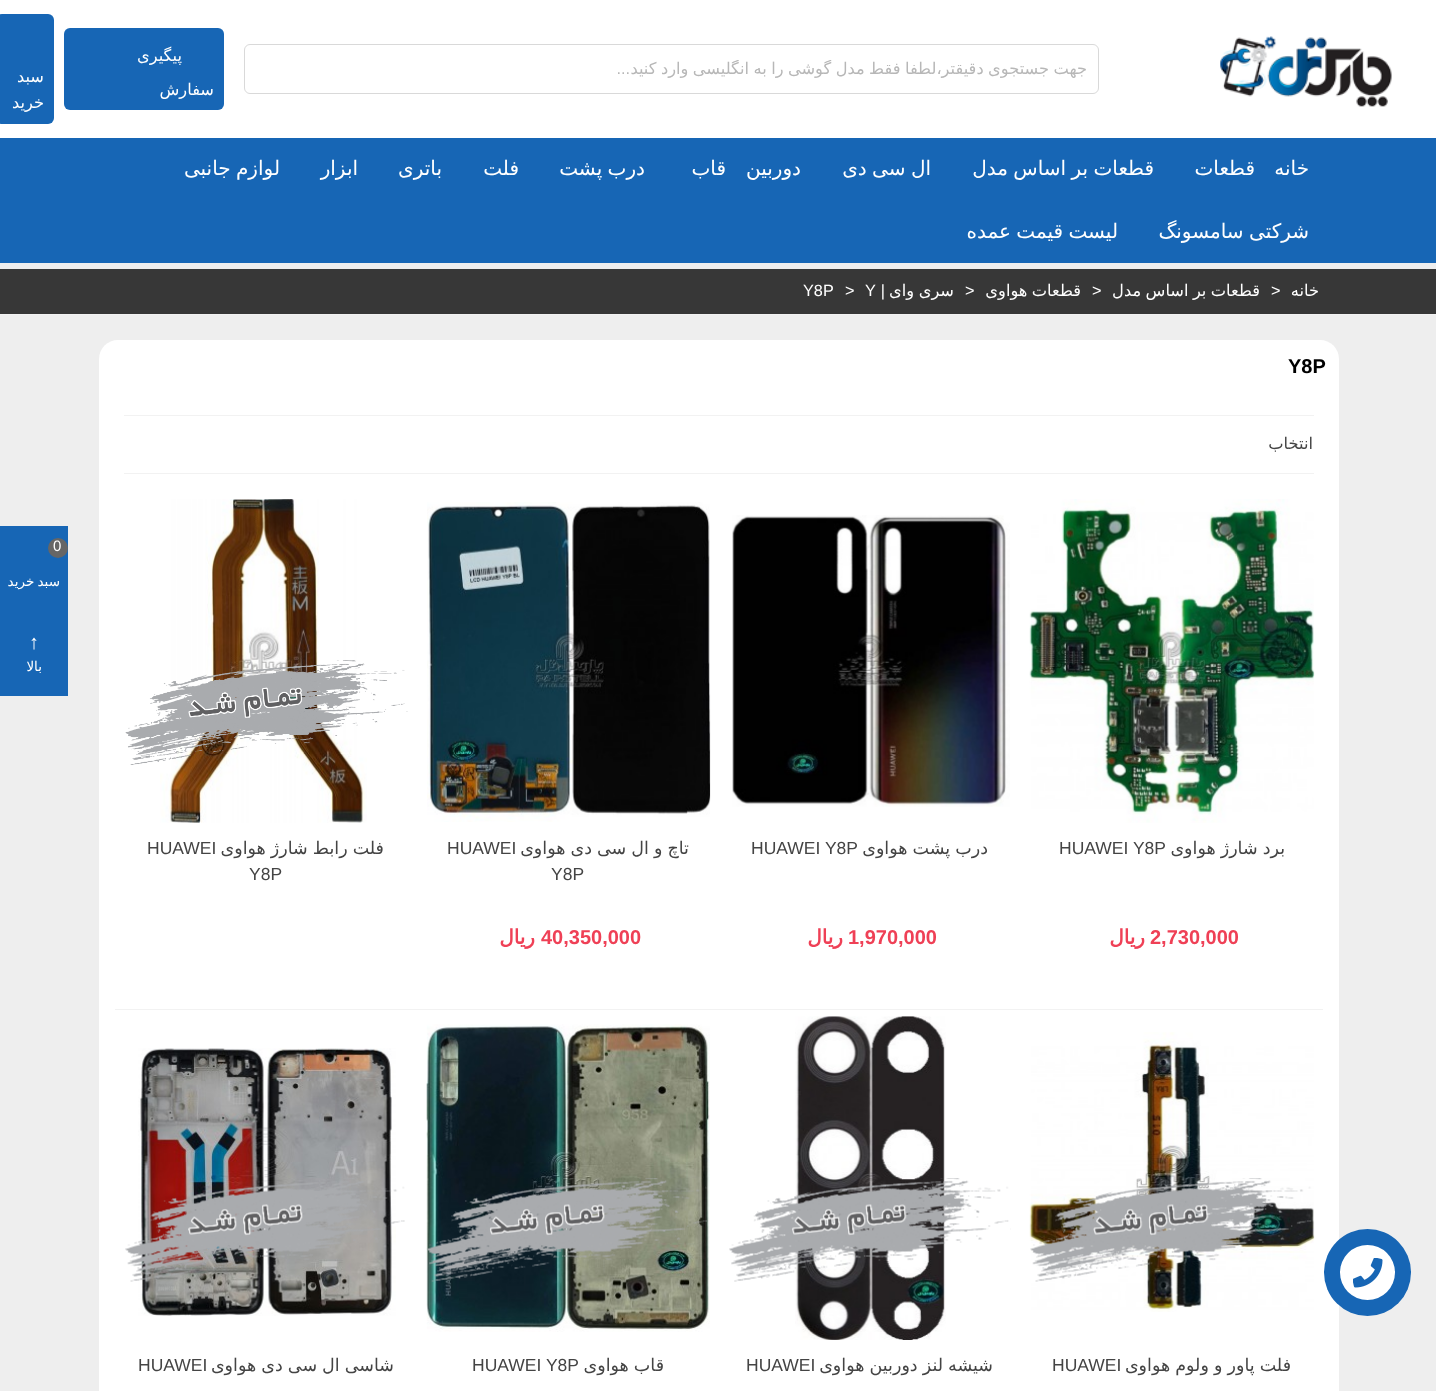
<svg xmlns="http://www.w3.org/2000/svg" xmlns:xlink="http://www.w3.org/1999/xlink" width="1436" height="1391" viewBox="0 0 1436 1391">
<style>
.cls-1{font:16.25px DejaVu Sans;direction:rtl;fill:#b7b7b7}
.cls-2{font:16.25px Liberation Sans;direction:rtl;fill:#b7b7b7}
.cls-3{font:16.25px DejaVu Sans;direction:rtl;fill:#ffffff}
.cls-4{font:20px DejaVu Sans;direction:rtl;fill:#ffffff}
.cls-5{font:16.25px Liberation Sans;fill:#ffffff}
.cls-6{font:16.25px Liberation Sans;direction:rtl;fill:#ffffff}
.cls-7{font:bold 20px Liberation Sans;fill:#000000}
.cls-8{font:16.25px DejaVu Sans;direction:rtl;fill:#444444}
.cls-9{font:17.5px DejaVu Sans;direction:rtl;fill:#444444}
.cls-10{font:17.5px Liberation Sans;fill:#444444}
.cls-11{font:bold 20px Liberation Sans;fill:#ef4056}
.cls-12{font:bold 20px DejaVu Sans;direction:rtl;fill:#ef4056}
.cls-13{font:15px Liberation Sans;fill:#ffffff}
.cls-14{font:13.5px DejaVu Sans;direction:rtl;fill:#ffffff}
.cls-15{font:20px Liberation Serif;fill:#ffffff}
</style>
<defs>
<clipPath id="clip1"><rect x="296" y="60" width="792" height="19"/></clipPath>
</defs>
<rect width="100%" height="100%" fill="#eeeeee"/>
<rect fill="#ffffff" x="0" y="0" width="1436" height="138"/>
<image xlink:href="image0.png" x="1220" y="36" width="172" height="71"/>
<rect fill="none" stroke="#d9d9d9" x="244.5" y="44.5" width="854" height="49" rx="5.5"/>
<rect fill="#1766b5" x="64" y="28" width="160" height="82" rx="6"/>
<rect fill="#1766b5" x="-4" y="14" width="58" height="110" rx="6"/>
<rect fill="#1766b5" x="0" y="138" width="1436" height="125"/>
<rect fill="#373737" x="0" y="269" width="1436" height="45"/>
<rect fill="#f2f2f2" x="0" y="314" width="1436" height="1"/>
<rect fill="#ffffff" x="99" y="340" width="1240" height="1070" rx="19"/>
<circle fill="#1766b5" cx="1367.5" cy="1272.5" r="43.5"/>
<circle fill="#ffffff" cx="1367.5" cy="1272.5" r="27.5"/>
<image xlink:href="image1.png" x="1353" y="1258" width="30" height="30"/>
<rect fill="#f2f2f2" x="124" y="415" width="1190" height="1"/>
<rect fill="#f2f2f2" x="124" y="473" width="1190" height="1"/>
<image xlink:href="image2.png" x="1029" y="499" width="286" height="324"/>
<image xlink:href="image3.png" x="732" y="515" width="278" height="292"/>
<image xlink:href="image4.png" x="427" y="502" width="284" height="320"/>
<image xlink:href="image5.png" x="160" y="499" width="207" height="324"/>
<image xlink:href="image6.png" x="125" y="660" width="283" height="105"/>
<rect fill="#f2f2f2" x="115" y="1009" width="1208" height="1"/>
<image xlink:href="image7.png" x="1029" y="1032" width="286" height="280"/>
<image xlink:href="image8.png" x="1030" y="1178" width="282" height="104"/>
<image xlink:href="image9.png" x="795" y="1016" width="151" height="324"/>
<image xlink:href="image10.png" x="729" y="1178" width="282" height="104"/>
<image xlink:href="image11.png" x="426" y="1024" width="284" height="308"/>
<image xlink:href="image12.png" x="426" y="1178" width="281" height="104"/>
<image xlink:href="image13.png" x="138" y="1048" width="258" height="268"/>
<image xlink:href="image14.png" x="125" y="1178" width="280" height="104"/>
<rect fill="#1766b5" x="0" y="526" width="68" height="170"/>
<circle fill="#666666" cx="58" cy="548" r="10"/>
<g clip-path="url(#clip1)">
<text class="cls-1" x="1087" y="74" word-spacing="-0.75">جهت جستجوی دقیقتر،لطفا فقط مدل گوشی را به انگلیسی وارد کنید</text>
</g>
<text class="cls-2" x="630" y="74">...</text>
<text class="cls-3" x="182" y="61">پیگیری</text>
<text class="cls-3" x="214" y="95">سفارش</text>
<text class="cls-3"><tspan x="44" y="82">سبد</tspan><tspan x="44" y="108">خرید</tspan></text>
<text class="cls-4" x="1309" y="175">خانه</text>
<text class="cls-4" x="1255" y="175">قطعات</text>
<text class="cls-4" x="1154" y="175" word-spacing="-1">قطعات بر اساس مدل</text>
<text class="cls-4" x="931" y="175" word-spacing="-1">ال سی دی</text>
<text class="cls-4" x="801" y="175">دوربین</text>
<text class="cls-4" x="726" y="175">قاب</text>
<text class="cls-4" x="645" y="175" word-spacing="-1">درب پشت</text>
<text class="cls-4" x="519" y="175">فلت</text>
<text class="cls-4" x="442" y="175">باتری</text>
<text class="cls-4" x="358" y="175">ابزار</text>
<text class="cls-4" x="280" y="175" word-spacing="-1">لوازم جانبی</text>
<text class="cls-4" x="1309" y="238" word-spacing="-1">شرکتی سامسونگ</text>
<text class="cls-4" x="1118" y="238" word-spacing="-1">لیست قیمت عمده</text>
<text class="cls-3" x="1319" y="296">خانه</text>
<text class="cls-5" x="1271" y="296">&gt;</text>
<text class="cls-3" x="1260" y="296" word-spacing="-0.75">قطعات بر اساس مدل</text>
<text class="cls-5" x="1092" y="296">&gt;</text>
<text class="cls-3" x="1081" y="296" word-spacing="-0.75">قطعات هواوی</text>
<text class="cls-5" x="965" y="296">&gt;</text>
<text class="cls-3" x="954" y="296">سری</text>
<text class="cls-3" x="914" y="296">وای</text>
<text class="cls-6" x="885" y="296">|</text>
<text class="cls-5" x="865" y="296">Y</text>
<text class="cls-5" x="845" y="296">&gt;</text>
<text class="cls-5" x="803" y="296">Y8P</text>
<text class="cls-7" x="1288" y="373">Y8P</text>
<text class="cls-8" x="1313" y="449">انتخاب</text>
<text class="cls-9" x="1285" y="854" word-spacing="-0.5">برد شارژ هواوی</text>
<text class="cls-10" x="1059" y="854">HUAWEI Y8P</text>
<text class="cls-11" x="1150" y="944">2,730,000</text>
<text class="cls-12" x="1145" y="944">ریال</text>
<text class="cls-9" x="988" y="854" word-spacing="-0.5">درب پشت هواوی</text>
<text class="cls-10" x="751" y="854">HUAWEI Y8P</text>
<text class="cls-11" x="848" y="944">1,970,000</text>
<text class="cls-12" x="843" y="944">ریال</text>
<text class="cls-9" x="689" y="854" word-spacing="-0.5">تاچ و ال سی دی هواوی</text>
<text class="cls-10" x="447" y="854">HUAWEI</text>
<text class="cls-10" x="551" y="880">Y8P</text>
<text class="cls-11" x="541" y="944">40,350,000</text>
<text class="cls-12" x="535" y="944">ریال</text>
<text class="cls-9" x="384" y="854" word-spacing="-0.5">فلت رابط شارژ هواوی</text>
<text class="cls-10" x="147" y="854">HUAWEI</text>
<text class="cls-10" x="249" y="880">Y8P</text>
<text class="cls-9" x="1291" y="1371" word-spacing="-0.5">فلت پاور و ولوم هواوی</text>
<text class="cls-10" x="1052" y="1371">HUAWEI</text>
<text class="cls-9" x="993" y="1371" word-spacing="-0.5">شیشه لنز دوربین هواوی</text>
<text class="cls-10" x="746" y="1371">HUAWEI</text>
<text class="cls-9" x="664" y="1371" word-spacing="-0.5">قاب هواوی</text>
<text class="cls-10" x="472" y="1371">HUAWEI Y8P</text>
<text class="cls-9" x="394" y="1371" word-spacing="-0.5">شاسی ال سی دی هواوی</text>
<text class="cls-10" x="138" y="1371">HUAWEI</text>
<text class="cls-13" x="53" y="551">0</text>
<text class="cls-14" x="60" y="586" word-spacing="-1">سبد خرید</text>
<text class="cls-15" x="29" y="649">↑</text>
<text class="cls-14" x="42" y="671">بالا</text>
</svg>
